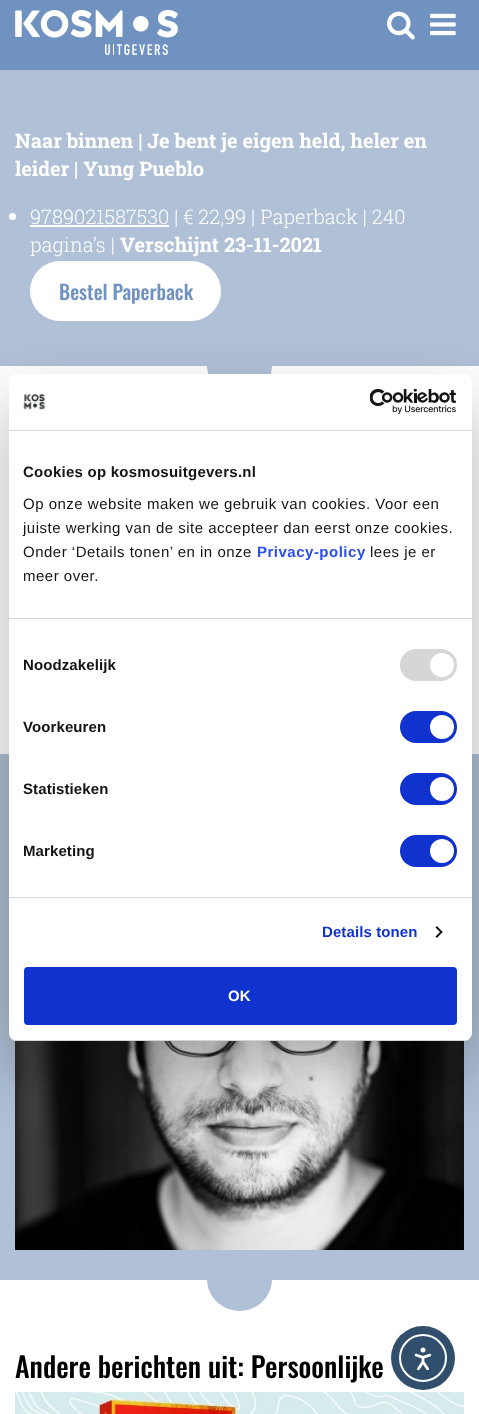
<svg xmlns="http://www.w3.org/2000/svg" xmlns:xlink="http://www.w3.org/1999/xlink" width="479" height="1414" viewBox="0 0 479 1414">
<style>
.cls-1{font:bold 20px Roboto Slab;fill:#ffffff}
.cls-2{font:300 20px Roboto Slab;fill:#ffffff}
.cls-3{font:500 20px Oswald;fill:#6f92c0}
.cls-4{font:500 28px Oswald;fill:#000000}
.cls-5{font:bold 15px Liberation Sans;letter-spacing:0.25px;fill:#141414}
.cls-6{font:15px Liberation Sans;letter-spacing:0.5px;fill:#141414}
.cls-7{font:bold 15px Liberation Sans;letter-spacing:0.5px;fill:#2a4eef}
.cls-8{font:bold 15px Liberation Sans;letter-spacing:0.1px;fill:#141414}
.cls-9{font:bold 15px Liberation Sans;letter-spacing:0.1px;fill:#1032cf}
.cls-10{font:bold 15px Liberation Sans;fill:#ffffff}
</style>
<defs>
<clipPath id="clip1"><rect x="9" y="374" width="463" height="667" rx="8"/></clipPath>
</defs>
<rect width="100%" height="100%" fill="#ffffff"/>
<rect fill="#6f92c0" x="0" y="0" width="479" height="70"/>
<image xlink:href="image0.png" x="15" y="10" width="163" height="45"/>
<image xlink:href="image1.png" x="387" y="11" width="28" height="29"/>
<image xlink:href="image2.png" x="430" y="13" width="26" height="23"/>
<rect fill="#b0c1d7" x="0" y="70" width="479" height="296"/>
<circle fill="#ffffff" cx="12.5" cy="216.5" r="3.5"/>
<rect fill="#ffffff" x="30" y="225" width="139" height="2"/>
<rect fill="#ffffff" x="30" y="261" width="191" height="60" rx="30"/>
<path fill="#b0c1d7" d="M207 365C207 383 222 397 240 397C257 397 272 383 272 365"/>
<rect fill="#b0c1d7" x="0" y="754" width="479" height="526"/>
<image xlink:href="image3.png" x="15" y="1040" width="449" height="210"/>
<path fill="#b0c1d7" d="M207 1279C207 1297 222 1311 240 1311C257 1311 272 1297 272 1279"/>
<image xlink:href="image4.png" x="15" y="1392" width="449" height="22"/>
<rect fill="#000000" fill-opacity="0.3" filter="blur(34px)" x="9" y="406" width="463" height="667" rx="8"/>
<rect fill="#ffffff" x="9" y="374" width="463" height="667" rx="8"/>
<rect fill="#d6d6d6" x="9" y="430" width="463" height="1"/>
<image xlink:href="image5.png" x="23" y="393" width="23" height="17"/>
<image xlink:href="image6.png" x="370" y="389" width="87" height="25"/>
<rect fill="#d6d6d6" x="9" y="618" width="463" height="1"/>
<rect fill="#d6d6d6" x="9" y="897" width="463" height="1"/>
<rect fill="#d6d6d6" x="400" y="649" width="57" height="32" rx="16"/>
<circle fill="#ffffff" cx="442" cy="665" r="12"/>
<rect fill="#1032cf" x="400" y="711" width="57" height="32" rx="16"/>
<circle fill="#ffffff" cx="442" cy="727" r="12"/>
<rect fill="#1032cf" x="400" y="773" width="57" height="32" rx="16"/>
<circle fill="#ffffff" cx="442" cy="789" r="12"/>
<rect fill="#1032cf" x="400" y="835" width="57" height="32" rx="16"/>
<circle fill="#ffffff" cx="442" cy="851" r="12"/>
<path fill="#141414" d="M437 926L442.5 932L441.5 933.5L435.5 927.5Z"/>
<path fill="#141414" d="M441.5 930.5L442.5 932L437 938L435.5 936.5Z"/>
<g clip-path="url(#clip1)">
<rect fill="#d6d6d6" x="9" y="1040" width="463" height="1"/>
</g>
<rect fill="#1032cf" stroke="#1032cf" stroke-width="2" x="25" y="968" width="431" height="56" rx="3"/>
<circle fill="#314e6c" cx="423" cy="1358" r="32"/>
<circle fill="none" stroke="#ffffff" stroke-width="2" cx="423" cy="1358" r="23"/>
<image xlink:href="image7.png" x="414" y="1347" width="18" height="24"/>
<text class="cls-1"><tspan x="15" y="148">Naar binnen | Je bent je eigen held, heler en</tspan><tspan x="15" y="176">leider | Yung Pueblo</tspan></text>
<text class="cls-2"><tspan x="30" y="224">9789021587530 | € 22,99 | Paperback | 240</tspan><tspan x="30" y="252">pagina’s |</tspan></text>
<text class="cls-1" x="120" y="252">Verschijnt 23-11-2021</text>
<text class="cls-3" x="59" y="300">Bestel Paperback</text>
<text class="cls-4" x="15" y="1378">Andere berichten uit: Persoonlijke</text>
<text class="cls-5" x="23" y="477">Cookies op kosmosuitgevers.nl</text>
<text class="cls-6"><tspan x="23" y="509">Op onze website maken we gebruik van cookies. Voor een</tspan><tspan x="23" y="533">juiste werking van de site accepteer dan eerst onze cookies.</tspan><tspan x="23" y="557">Onder ‘Details tonen’ en in onze</tspan></text>
<text class="cls-7" x="257" y="557">Privacy-policy</text>
<text class="cls-6" x="370" y="557">lees je er</text>
<text class="cls-6" x="23" y="581">meer over.</text>
<text class="cls-8" x="23" y="670">Noodzakelijk</text>
<text class="cls-8" x="23" y="732">Voorkeuren</text>
<text class="cls-8" x="23" y="794">Statistieken</text>
<text class="cls-8" x="23" y="856">Marketing</text>
<text class="cls-9" x="322" y="937">Details tonen</text>
<text class="cls-10" x="228" y="1001">OK</text>
</svg>
